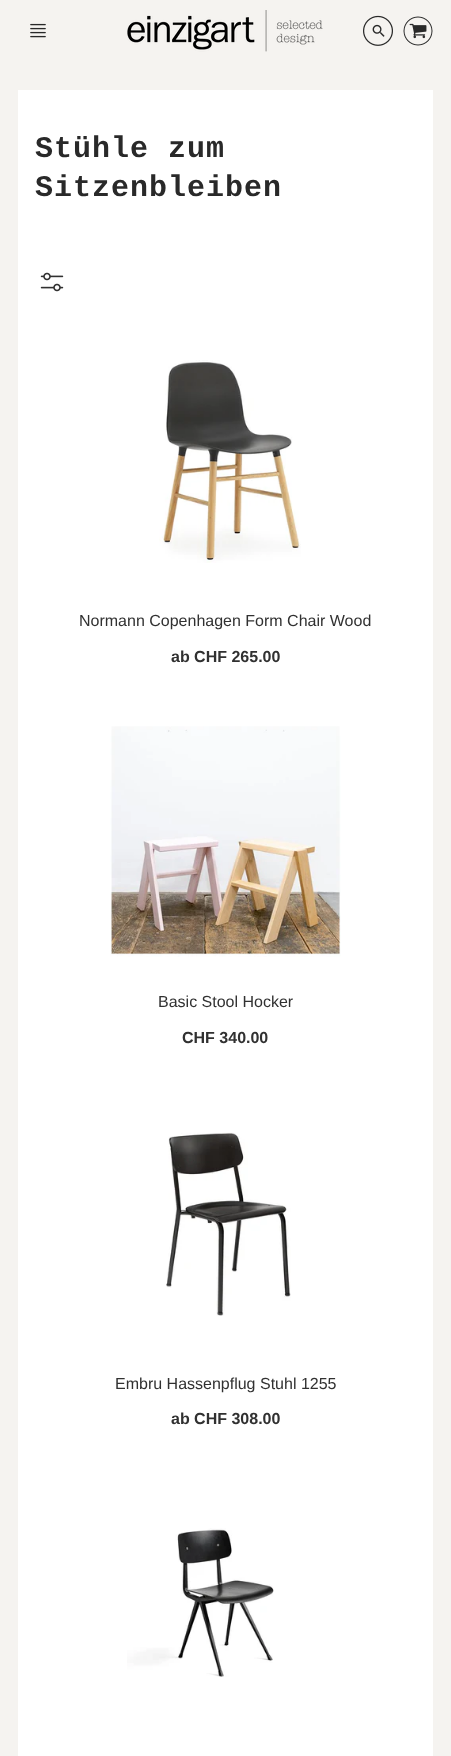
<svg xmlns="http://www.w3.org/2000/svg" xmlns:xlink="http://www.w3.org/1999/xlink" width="451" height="1756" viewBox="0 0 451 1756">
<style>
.cls-1{font:bold 30px Liberation Mono;letter-spacing:1px;fill:#292929}
.cls-2{font:16px Liberation Sans;fill:#313131}
.cls-3{font:bold 16px Liberation Sans;fill:#313131}
</style>
<rect width="100%" height="100%" fill="#f5f3f0"/>
<image xlink:href="image0.png" x="30" y="23" width="16" height="15"/>
<image xlink:href="image1.png" x="127" y="10" width="196" height="42"/>
<image xlink:href="image2.png" x="363" y="15" width="30" height="31"/>
<image xlink:href="image3.png" x="403" y="16" width="30" height="30"/>
<rect fill="#ffffff" x="18" y="90" width="415" height="1666"/>
<image xlink:href="image4.png" x="40" y="272" width="24" height="20"/>
<image xlink:href="image5.png" x="159" y="360" width="142" height="203"/>
<image xlink:href="image6.png" x="110" y="726" width="231" height="231"/>
<image xlink:href="image7.png" x="166" y="1132" width="125" height="184"/>
<image xlink:href="image8.png" x="127" y="1528" width="147" height="149"/>
<text class="cls-1"><tspan x="35" y="157">Stühle zum</tspan><tspan x="35" y="196">Sitzenbleiben</tspan></text>
<text class="cls-2" x="79" y="626">Normann Copenhagen Form Chair Wood</text>
<text class="cls-3" x="171" y="662">ab CHF 265.00</text>
<text class="cls-2" x="158" y="1007">Basic Stool Hocker</text>
<text class="cls-3" x="182" y="1043">CHF 340.00</text>
<text class="cls-2" x="115" y="1389">Embru Hassenpflug Stuhl 1255</text>
<text class="cls-3" x="171" y="1424">ab CHF 308.00</text>
</svg>
